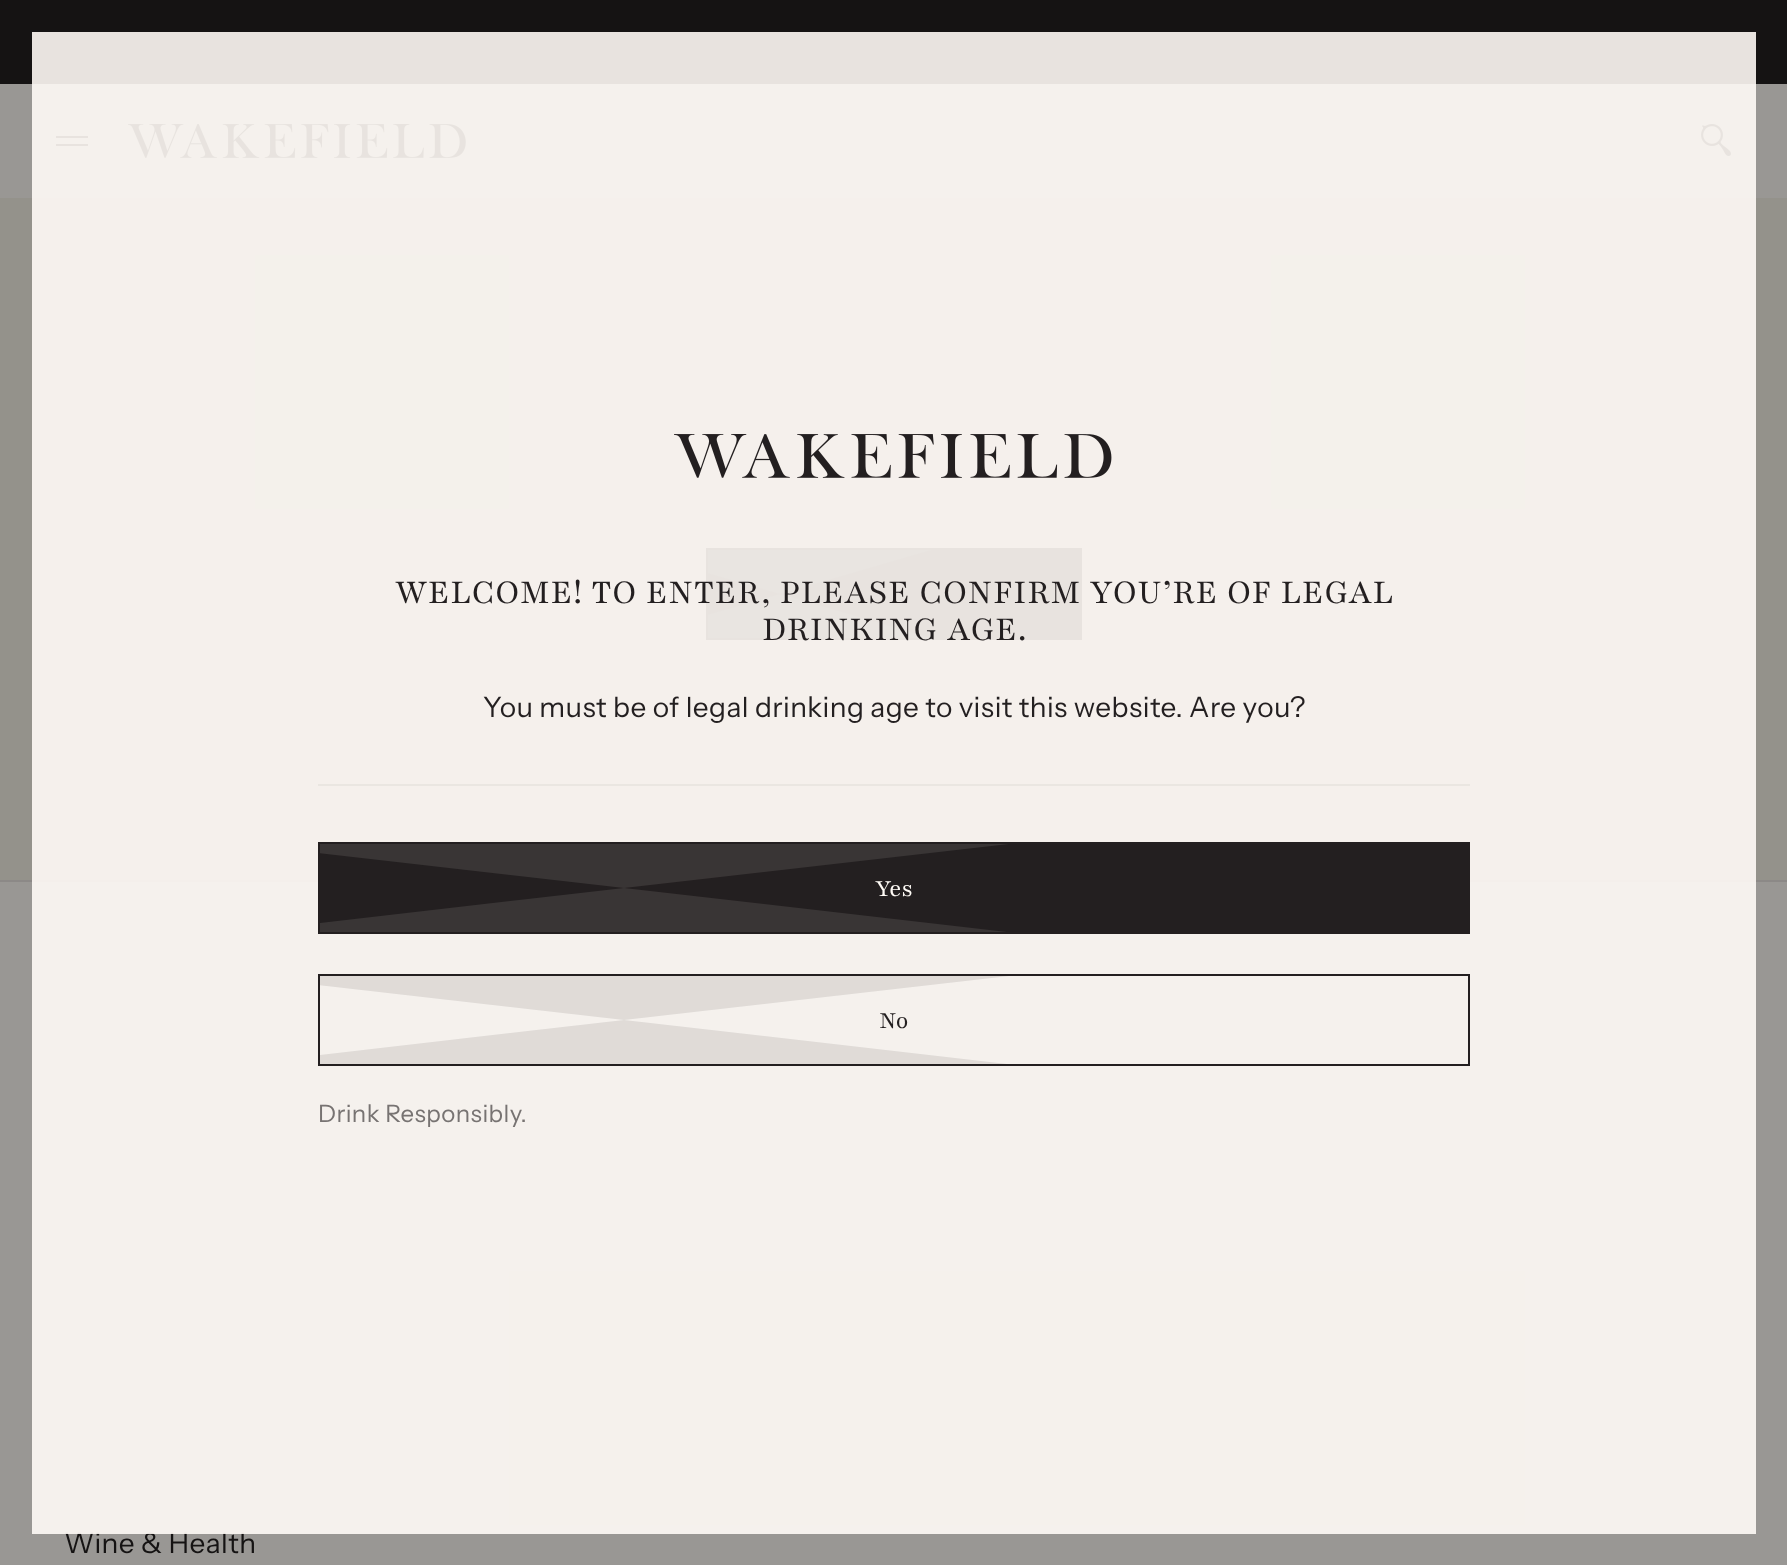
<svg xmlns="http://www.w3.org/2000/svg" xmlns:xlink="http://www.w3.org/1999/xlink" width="1787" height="1565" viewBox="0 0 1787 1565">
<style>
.cls-1{font:28px Instrument Sans;letter-spacing:0.42px;fill:#151313}
.cls-2{font:26px 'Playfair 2';fill:#231f20}
.cls-3{font:26px 'Playfair 2';fill:#fffbf6}
.cls-4{font:24px Instrument Sans;letter-spacing:0.42px;fill:#777372}
.cls-5{font:28px Instrument Sans;letter-spacing:0.42px;fill:#231f20}
.cls-6{font:37.25px Playfair;letter-spacing:0.75px;fill:#231f20}
</style>
<defs>
<clipPath id="clip1"><rect x="708" y="550" width="372" height="88"/></clipPath>
<clipPath id="clip2"><rect x="320" y="976" width="1148" height="88"/></clipPath>
<clipPath id="clip3"><rect x="320" y="844" width="1148" height="88"/></clipPath>
</defs>
<rect width="100%" height="100%" fill="#94928b"/>
<rect fill="#151313" x="0" y="0" width="1787" height="84"/>
<rect fill="#999794" x="0" y="84" width="1787" height="114"/>
<rect fill="#151313" x="56" y="136" width="32" height="2"/>
<rect fill="#151313" x="56" y="144" width="32" height="2"/>
<image xlink:href="image0.png" x="128" y="124" width="338" height="34"/>
<image xlink:href="image1.png" x="1701" y="124" width="30" height="32"/>
<rect fill="#151313" x="706" y="548" width="376" height="92"/>
<g clip-path="url(#clip1)">
<path fill="#999893" fill-opacity="0.1" d="M931 550H628L780 594L628 638H931L780 594Z"/>
</g>
<rect fill="#999794" x="0" y="882" width="1787" height="683"/>
<rect fill="#8c8987" x="0" y="880" width="1787" height="2"/>
<text class="cls-1" x="64" y="1553">Wine &amp; Health</text>
<rect fill="#fffbf6" fill-opacity="0.9" x="32" y="32" width="1724" height="1502"/>
<rect fill="none" stroke="#231f20" stroke-width="2" x="319" y="975" width="1150" height="90"/>
<g clip-path="url(#clip2)">
<path fill="#231f20" fill-opacity="0.1" fill-rule="evenodd" d="M1007 1064H241L624 1020ZM1009 976L624 1020L240 976Z"/>
</g>
<text class="cls-2" x="879" y="1028">No</text>
<rect fill="#231f20" x="318" y="842" width="1152" height="92"/>
<text class="cls-3" x="875" y="896">Yes</text>
<g clip-path="url(#clip3)">
<path fill="#393535" fill-rule="evenodd" d="M1007 932H241L624 888ZM1009 844L624 888L240 844Z"/>
</g>
<rect fill="#eae6e1" x="318" y="784" width="1152" height="2"/>
<text class="cls-4" x="318" y="1122">Drink Responsibly.</text>
<text class="cls-5" x="483" y="717">You must be of legal drinking age to visit this website. Are you?</text>
<text class="cls-6" x="762" y="640">DRINKING AGE.</text>
<text class="cls-6" x="395" y="603">WELCOME! TO ENTER, PLEASE CONFIRM YOU’RE OF LEGAL</text>
<image xlink:href="image2.png" x="674" y="434" width="438" height="44"/>
</svg>
